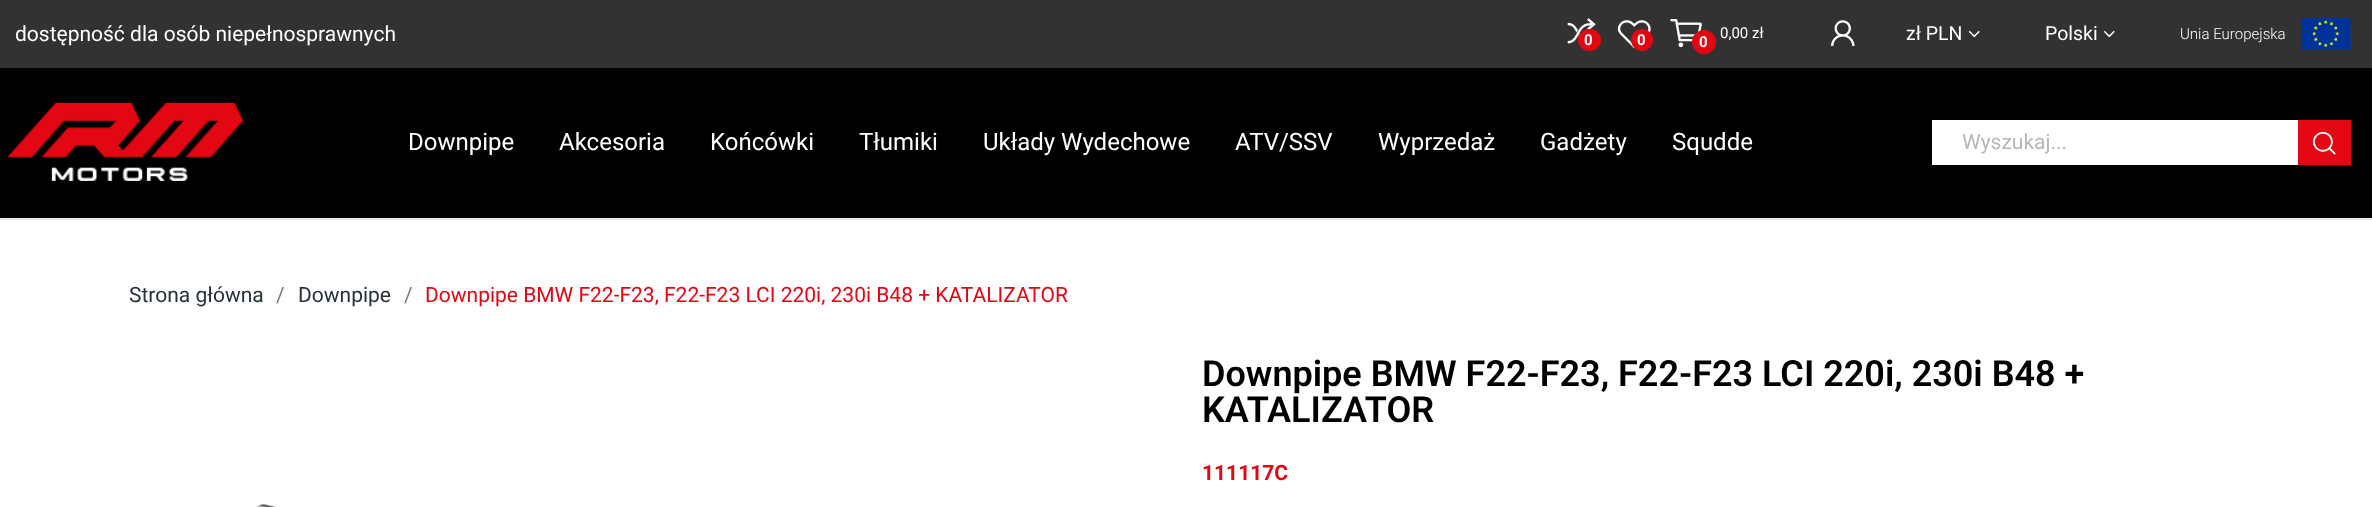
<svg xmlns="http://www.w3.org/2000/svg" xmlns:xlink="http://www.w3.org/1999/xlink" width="2372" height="507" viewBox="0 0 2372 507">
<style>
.cls-1{font:21px Roboto;fill:#ffffff}
.cls-2{font:bold 15px Roboto;fill:#ffffff}
.cls-3{font:15px Roboto;fill:#ffffff}
.cls-4{font:19.5px Roboto;fill:#ffffff}
.cls-5{font:300 15px Roboto;fill:#ffffff}
.cls-6{font:24px Roboto;fill:#ffffff}
.cls-7{font:21px Roboto;fill:#b7b7b7}
.cls-8{font:21px Roboto;fill:#253237}
.cls-9{font:21px Roboto;fill:#7a7a7a}
.cls-10{font:21px Roboto;fill:#e30613}
.cls-11{font:600 36px Roboto;fill:#000000}
.cls-12{font:bold 21px Roboto;fill:#e30613}
</style>
<rect width="100%" height="100%" fill="#ffffff"/>
<rect fill="#ebebeb" x="0" y="218" width="2372" height="2"/>
<rect fill="#323232" x="0" y="0" width="2372" height="68"/>
<image xlink:href="image0.png" x="1567" y="18" width="29" height="26"/>
<rect fill="#e30613" x="1578" y="29" width="23" height="22" rx="11"/>
<image xlink:href="image1.png" x="1617" y="20" width="34" height="29"/>
<circle fill="#e30613" cx="1642" cy="40" r="11"/>
<image xlink:href="image2.png" x="1670" y="19" width="32" height="29"/>
<circle fill="#e30613" cx="1704" cy="42" r="12"/>
<image xlink:href="image3.png" x="1831" y="20" width="24" height="26"/>
<image xlink:href="image4.png" x="1968" y="30" width="12" height="8"/>
<image xlink:href="image4.png" x="2103" y="30" width="12" height="8"/>
<image xlink:href="image5.png" x="2301" y="18" width="50" height="32"/>
<rect fill="#000000" x="0" y="68" width="2372" height="150"/>
<image xlink:href="image6.png" x="7" y="102" width="236" height="79"/>
<rect fill="#ffffff" x="1932" y="120" width="366" height="45"/>
<rect fill="#e30613" x="2298" y="120" width="53" height="45"/>
<image xlink:href="image7.png" x="2313" y="131" width="23" height="24"/>
<image xlink:href="image8.png" x="256" y="503" width="22" height="4"/>
<text class="cls-1" x="15" y="41">dostępność dla osób niepełnosprawnych</text>
<text class="cls-2" x="1584" y="45">0</text>
<text class="cls-2" x="1637" y="45">0</text>
<text class="cls-2" x="1699" y="47">0</text>
<text class="cls-3" x="1720" y="38">0,00 zł</text>
<text class="cls-4" x="1906" y="40">zł PLN</text>
<text class="cls-4" x="2045" y="40">Polski</text>
<text class="cls-5" x="2180" y="39">Unia Europejska</text>
<text class="cls-6" x="408" y="150">Downpipe</text>
<text class="cls-6" x="559" y="150">Akcesoria</text>
<text class="cls-6" x="710" y="150">Końcówki</text>
<text class="cls-6" x="859" y="150">Tłumiki</text>
<text class="cls-6" x="983" y="150">Układy Wydechowe</text>
<text class="cls-6" x="1235" y="150">ATV/SSV</text>
<text class="cls-6" x="1378" y="150">Wyprzedaż</text>
<text class="cls-6" x="1540" y="150">Gadżety</text>
<text class="cls-6" x="1672" y="150">Squdde</text>
<text class="cls-7" x="1962" y="149">Wyszukaj...</text>
<text class="cls-8" x="129" y="302">Strona główna</text>
<text class="cls-9" x="276" y="302">/</text>
<text class="cls-8" x="298" y="302">Downpipe</text>
<text class="cls-9" x="404" y="302">/</text>
<text class="cls-10" x="425" y="302">Downpipe BMW F22-F23, F22-F23 LCI 220i, 230i B48 + KATALIZATOR</text>
<text class="cls-11"><tspan x="1202" y="386">Downpipe BMW F22-F23, F22-F23 LCI 220i, 230i B48 +</tspan><tspan x="1202" y="422">KATALIZATOR</tspan></text>
<text class="cls-12" x="1202" y="480">111117C</text>
</svg>
